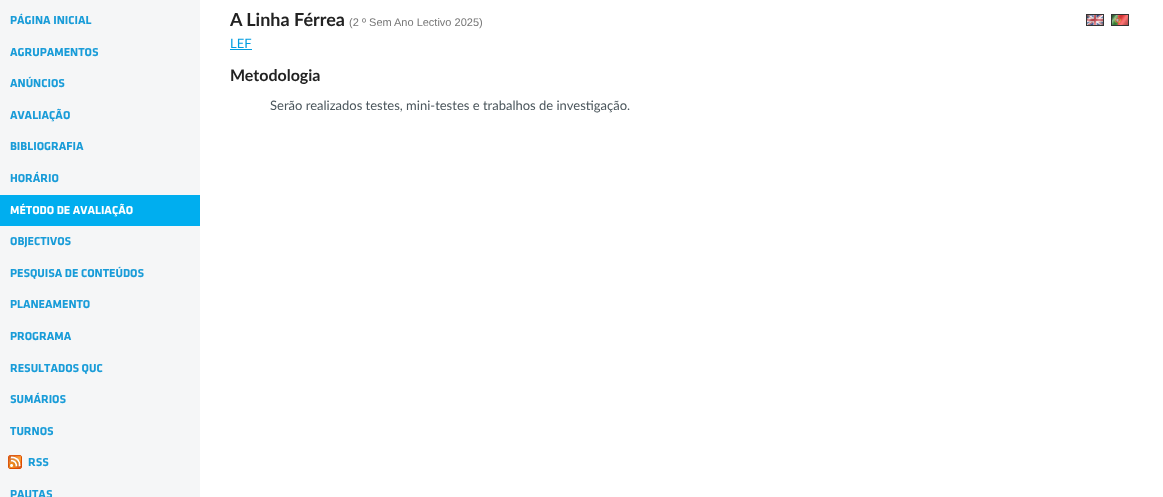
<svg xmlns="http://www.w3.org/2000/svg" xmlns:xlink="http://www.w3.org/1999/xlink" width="1163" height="497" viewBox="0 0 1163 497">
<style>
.cls-1{font:bold 12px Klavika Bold;fill:#199cd8}
.cls-2{font:bold 12px Klavika Bold;fill:#ffffff}
.cls-3{font:bold 18px Lato;fill:#222222}
.cls-4{font:11px Liberation Sans;fill:#777777}
.cls-5{font:13px Lato;fill:#009de0}
.cls-6{font:bold 16px Lato;fill:#222222}
.cls-7{font:13px Lato;fill:#4b565c}
</style>
<rect width="100%" height="100%" fill="#ffffff"/>
<rect fill="#f5f6f7" x="0" y="0" width="200" height="497"/>
<rect fill="#00aeef" x="0" y="195" width="200" height="31"/>
<image xlink:href="image0.png" x="8" y="455" width="14" height="14"/>
<image xlink:href="image1.png" x="1086" y="14" width="18" height="12"/>
<image xlink:href="image2.png" x="1111" y="14" width="18" height="12"/>
<rect fill="#009de0" x="230" y="49" width="22" height="1"/>
<text class="cls-1" x="10" y="24">PÁGINA INICIAL</text>
<text class="cls-1" x="10" y="56">AGRUPAMENTOS</text>
<text class="cls-1" x="10" y="87">ANÚNCIOS</text>
<text class="cls-1" x="10" y="119">AVALIAÇÃO</text>
<text class="cls-1" x="10" y="150">BIBLIOGRAFIA</text>
<text class="cls-1" x="10" y="182">HORÁRIO</text>
<text class="cls-2" x="10" y="214">MÉTODO DE AVALIAÇÃO</text>
<text class="cls-1" x="10" y="245">OBJECTIVOS</text>
<text class="cls-1" x="10" y="277">PESQUISA DE CONTEÚDOS</text>
<text class="cls-1" x="10" y="308">PLANEAMENTO</text>
<text class="cls-1" x="10" y="340">PROGRAMA</text>
<text class="cls-1" x="10" y="372">RESULTADOS QUC</text>
<text class="cls-1" x="10" y="403">SUMÁRIOS</text>
<text class="cls-1" x="10" y="435">TURNOS</text>
<text class="cls-1" x="28" y="466">RSS</text>
<text class="cls-1" x="10" y="498">PAUTAS</text>
<text class="cls-3" x="230" y="26">A Linha Férrea</text>
<text class="cls-4" x="349" y="26">(2</text>
<text class="cls-4" x="362" y="26">º Sem</text>
<text class="cls-4" x="394" y="26">Ano Lectivo 2025)</text>
<text class="cls-5" x="230" y="48">LEF</text>
<text class="cls-6" x="230" y="81">Metodologia</text>
<text class="cls-7" x="270" y="110">Serão realizados testes, mini-testes e trabalhos de investigação.</text>
</svg>
